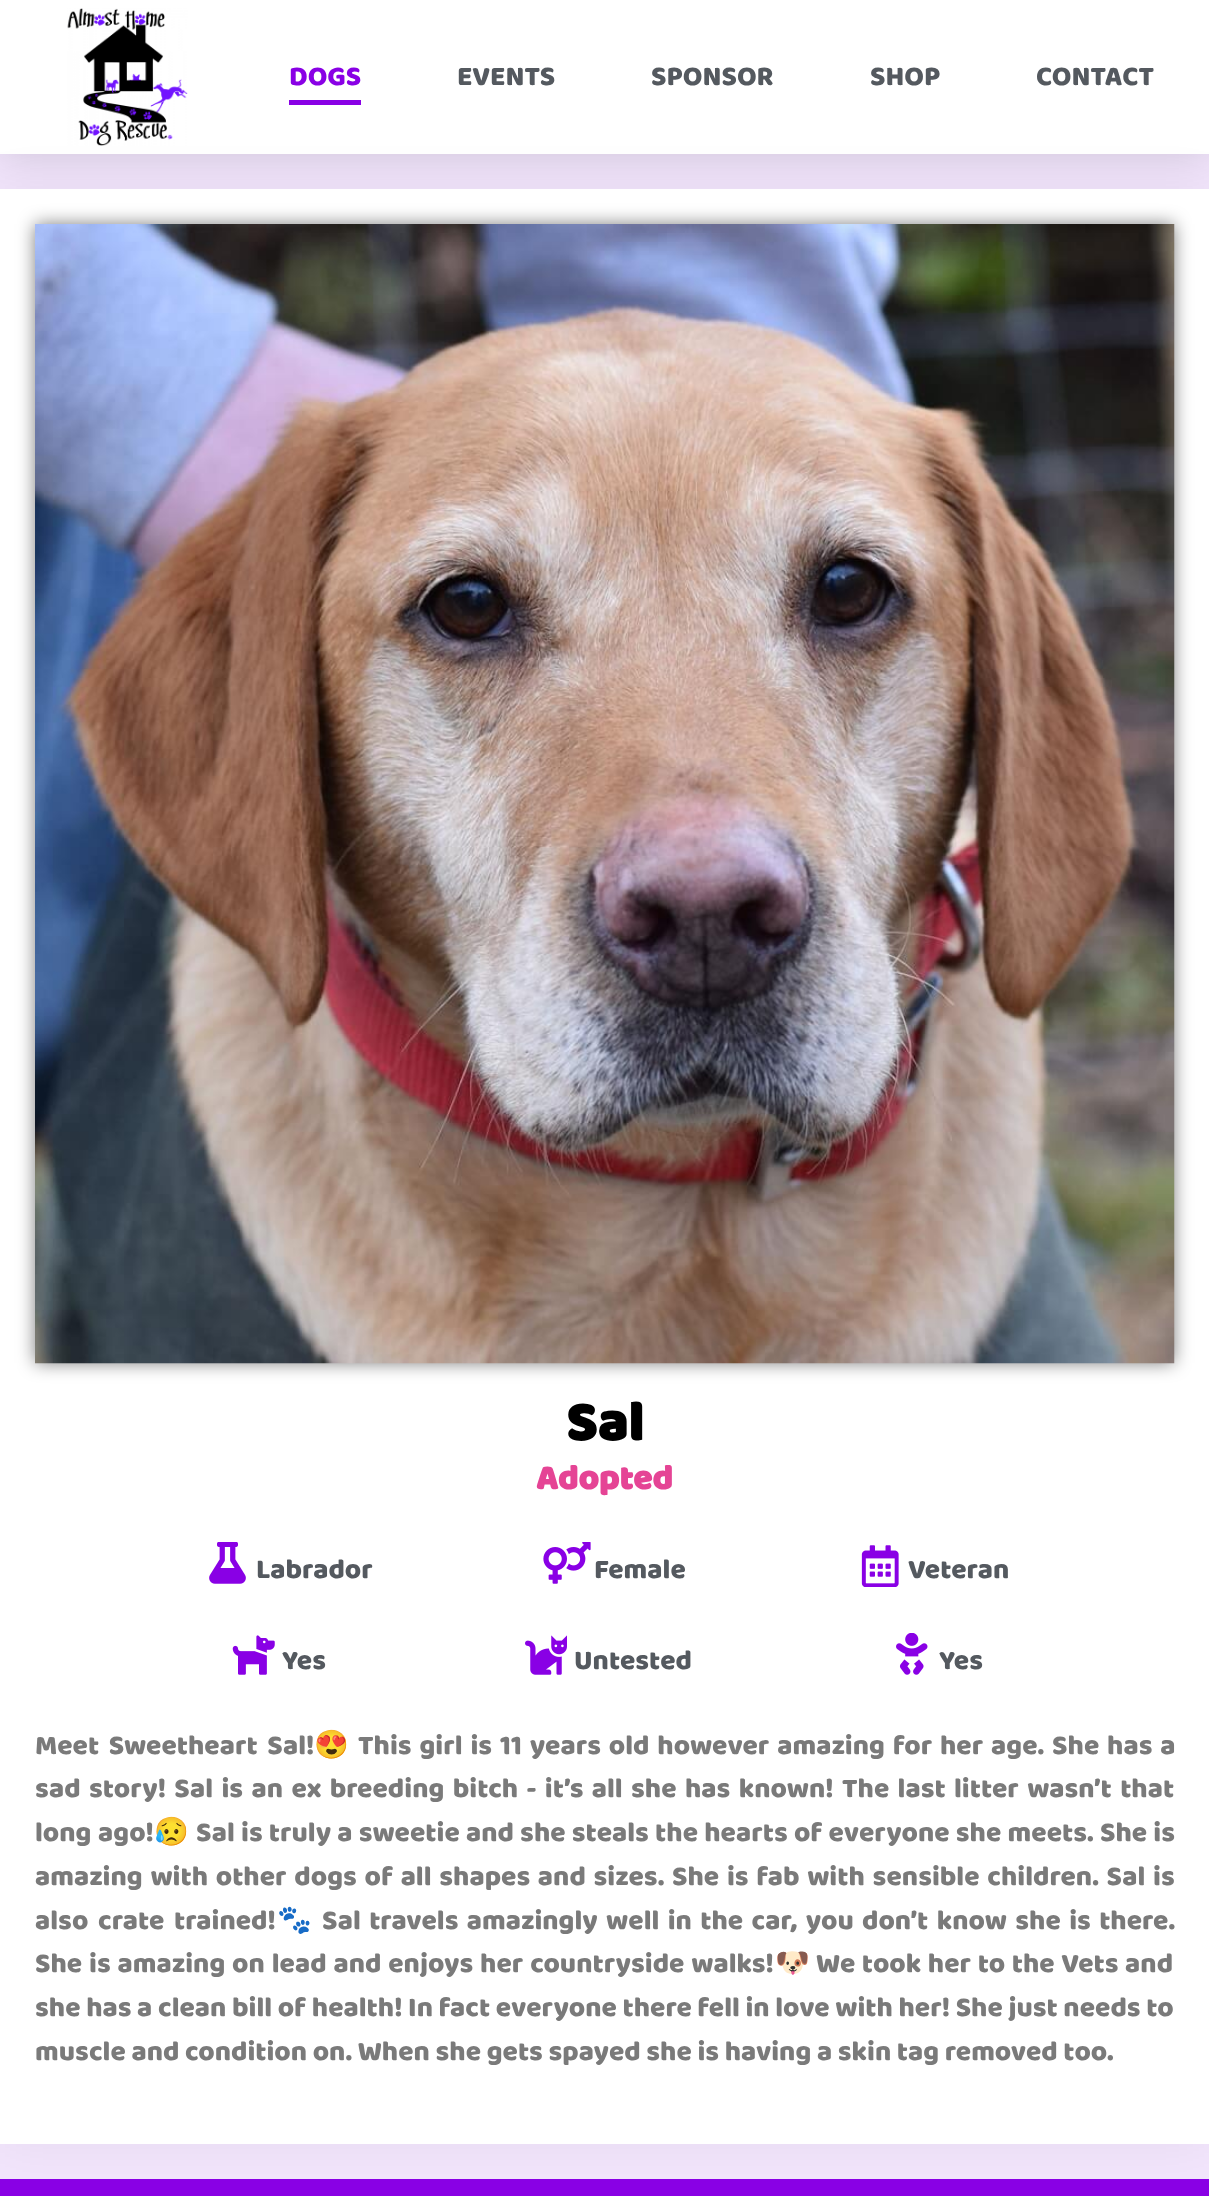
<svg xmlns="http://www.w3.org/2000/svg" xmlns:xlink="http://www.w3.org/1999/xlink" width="1209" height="2196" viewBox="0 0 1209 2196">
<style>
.cls-1{font:28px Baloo;fill:#8900e5}
.cls-2{font:28px Baloo;fill:#54595f}
.cls-3{font:bold 56px Baloo;fill:#000000}
.cls-4{font:bold 35px Baloo;fill:#e54495}
.cls-5{font:28px Baloo;fill:#7a7a7a}
.cls-6{font:28px Noto Color Emoji;fill:#7a7a7a}
</style>
<rect width="100%" height="100%" fill="#f2e5fc"/>
<rect fill="#000000" fill-opacity="0.15" filter="blur(21px)" x="0" y="0" width="1209" height="154"/>
<rect fill="#ffffff" x="0" y="0" width="1209" height="154"/>
<rect fill="#000000" fill-opacity="0.05" filter="blur(26px)" x="0" y="189" width="1209" height="1955"/>
<image xlink:href="image0.png" x="67" y="8" width="121" height="138"/>
<rect fill="#8900e5" x="289" y="100" width="72" height="5"/>
<rect fill="#ffffff" x="0" y="189" width="1209" height="1955"/>
<rect fill="#000000" fill-opacity="0.5" filter="blur(9px)" x="35" y="224" width="1139" height="1139"/>
<image xlink:href="image1.png" x="35" y="224" width="1140" height="1140"/>
<image xlink:href="image2.png" x="209" y="1542" width="37" height="42"/>
<image xlink:href="image3.png" x="543" y="1542" width="48" height="42"/>
<image xlink:href="image4.png" x="861" y="1545" width="38" height="42"/>
<image xlink:href="image5.png" x="232" y="1635" width="43" height="40"/>
<image xlink:href="image6.png" x="525" y="1635" width="42" height="40"/>
<image xlink:href="image7.png" x="896" y="1633" width="32" height="42"/>
<rect fill="#8900e5" x="0" y="2179" width="1209" height="17"/>
<text class="cls-1" x="289" y="85">DOGS</text>
<text class="cls-2" x="457" y="85">EVENTS</text>
<text class="cls-2" x="651" y="85">SPONSOR</text>
<text class="cls-2" x="870" y="85">SHOP</text>
<text class="cls-2" x="1036" y="85">CONTACT</text>
<text class="cls-3" x="566" y="1440">Sal</text>
<text class="cls-4" x="536" y="1489">Adopted</text>
<text class="cls-2" x="256" y="1578">Labrador</text>
<text class="cls-2" x="594" y="1578">Female</text>
<text class="cls-2" x="908" y="1578">Veteran</text>
<text class="cls-2" x="282" y="1669">Yes</text>
<text class="cls-2" x="574" y="1669">Untested</text>
<text class="cls-2" x="939" y="1669">Yes</text>
<text class="cls-5" x="35" y="1754" word-spacing="4">Meet Sweetheart Sal!</text>
<text class="cls-6" x="314" y="1754">😍</text>
<text class="cls-5" x="358" y="1754" word-spacing="2.25">This girl is 11 years old however amazing for her age. She has a</text>
<text class="cls-5"><tspan x="35" y="1797" word-spacing="2.75">sad story! Sal is an ex breeding bitch - it’s all she has known! The last litter wasn’t that</tspan><tspan x="35" y="1841" word-spacing="1">long ago!</tspan></text>
<text class="cls-6" x="154" y="1841">😥</text>
<text class="cls-5" x="196" y="1841" word-spacing="0.6">Sal is truly a sweetie and she steals the hearts of everyone she meets. She is</text>
<text class="cls-5"><tspan x="35" y="1885" word-spacing="2.1">amazing with other dogs of all shapes and sizes. She is fab with sensible children. Sal is</tspan><tspan x="35" y="1929" word-spacing="4">also crate trained!</tspan></text>
<text class="cls-6" x="277" y="1929">🐾</text>
<text class="cls-5" x="322" y="1929" word-spacing="2.75">Sal travels amazingly well in the car, you don’t know she is there.</text>
<text class="cls-5" x="35" y="1972" word-spacing="1.25">She is amazing on lead and enjoys her countryside walks!</text>
<text class="cls-6" x="775" y="1972">🐶</text>
<text class="cls-5" x="816" y="1972" word-spacing="1">We took her to the Vets and</text>
<text class="cls-5"><tspan x="35" y="2016">she has a clean bill of health! In fact everyone there fell in love with her! She just needs to</tspan><tspan x="35" y="2060">muscle and condition on. When she gets spayed she is having a skin tag removed too.</tspan></text>
</svg>
